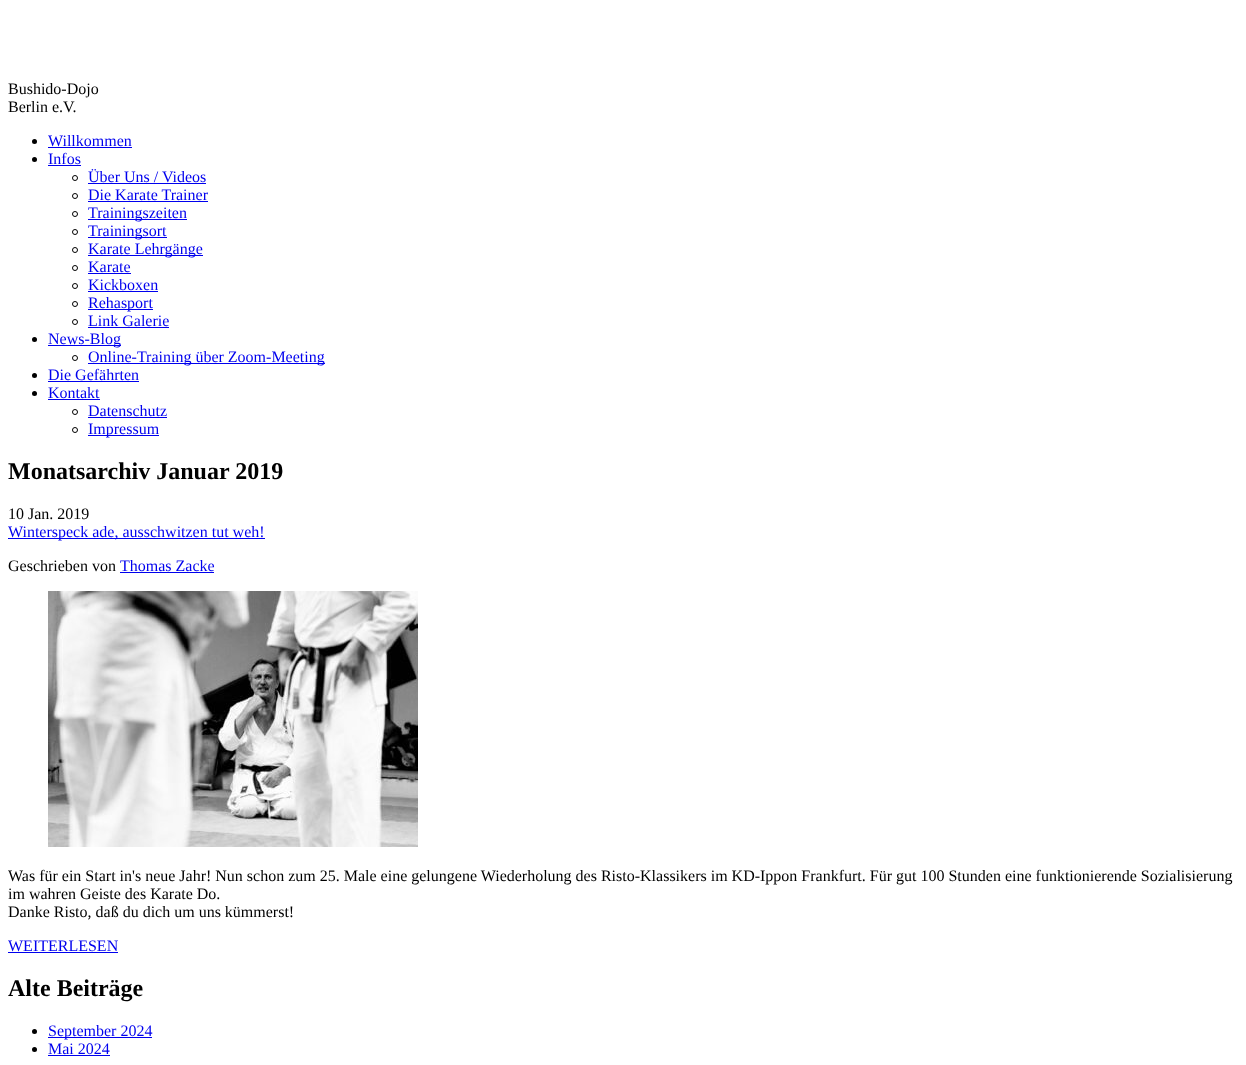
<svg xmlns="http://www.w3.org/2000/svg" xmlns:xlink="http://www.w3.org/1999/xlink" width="1246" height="1065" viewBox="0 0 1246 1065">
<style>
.cls-1{font:16px Liberation Serif;fill:#000000}
.cls-2{font:16px Liberation Serif;fill:#0000ee}
.cls-3{font:bold 24px Liberation Serif;fill:#000000}
</style>
<rect width="100%" height="100%" fill="#ffffff"/>
<circle fill="#000000" cx="34.5" cy="141.5" r="2.5"/>
<rect fill="#0000ee" x="48" y="147" width="84" height="1"/>
<circle fill="#000000" cx="34.5" cy="159.5" r="2.5"/>
<rect fill="#0000ee" x="48" y="165" width="33" height="1"/>
<circle fill="none" stroke="#000000" cx="75" cy="178" r="2.5"/>
<rect fill="#0000ee" x="88" y="183" width="118" height="1"/>
<circle fill="none" stroke="#000000" cx="75" cy="196" r="2.5"/>
<rect fill="#0000ee" x="88" y="201" width="120" height="1"/>
<circle fill="none" stroke="#000000" cx="75" cy="214" r="2.5"/>
<rect fill="#0000ee" x="88" y="219" width="99" height="1"/>
<circle fill="none" stroke="#000000" cx="75" cy="232" r="2.5"/>
<rect fill="#0000ee" x="88" y="237" width="79" height="1"/>
<circle fill="none" stroke="#000000" cx="75" cy="250" r="2.5"/>
<rect fill="#0000ee" x="88" y="255" width="115" height="1"/>
<circle fill="none" stroke="#000000" cx="75" cy="268" r="2.5"/>
<rect fill="#0000ee" x="88" y="273" width="43" height="1"/>
<circle fill="none" stroke="#000000" cx="75" cy="286" r="2.5"/>
<rect fill="#0000ee" x="88" y="291" width="70" height="1"/>
<circle fill="none" stroke="#000000" cx="75" cy="304" r="2.5"/>
<rect fill="#0000ee" x="88" y="309" width="65" height="1"/>
<circle fill="none" stroke="#000000" cx="75" cy="322" r="2.5"/>
<rect fill="#0000ee" x="88" y="327" width="81" height="1"/>
<circle fill="#000000" cx="34.5" cy="339.5" r="2.5"/>
<rect fill="#0000ee" x="48" y="345" width="73" height="1"/>
<circle fill="none" stroke="#000000" cx="75" cy="358" r="2.5"/>
<rect fill="#0000ee" x="88" y="363" width="237" height="1"/>
<circle fill="#000000" cx="34.5" cy="375.5" r="2.5"/>
<rect fill="#0000ee" x="48" y="381" width="91" height="1"/>
<circle fill="#000000" cx="34.5" cy="393.5" r="2.5"/>
<rect fill="#0000ee" x="48" y="399" width="52" height="1"/>
<circle fill="none" stroke="#000000" cx="75" cy="412" r="2.5"/>
<rect fill="#0000ee" x="88" y="417" width="79" height="1"/>
<circle fill="none" stroke="#000000" cx="75" cy="430" r="2.5"/>
<rect fill="#0000ee" x="88" y="435" width="71" height="1"/>
<rect fill="#0000ee" x="8" y="538" width="257" height="1"/>
<rect fill="#0000ee" x="120" y="572" width="94" height="1"/>
<image xlink:href="image0.png" x="48" y="591" width="370" height="256"/>
<rect fill="#0000ee" x="8" y="952" width="110" height="1"/>
<circle fill="#000000" cx="34.5" cy="1031.5" r="2.5"/>
<rect fill="#0000ee" x="48" y="1037" width="104" height="1"/>
<circle fill="#000000" cx="34.5" cy="1049.5" r="2.5"/>
<rect fill="#0000ee" x="48" y="1055" width="62" height="1"/>
<text class="cls-1"><tspan x="8" y="94">Bushido-Dojo</tspan><tspan x="8" y="112">Berlin e.V.</tspan></text>
<text class="cls-2"><tspan x="48" y="146">Willkommen</tspan><tspan x="48" y="164">Infos</tspan></text>
<text class="cls-2"><tspan x="88" y="182">Über Uns / Videos</tspan><tspan x="88" y="200">Die Karate Trainer</tspan><tspan x="88" y="218">Trainingszeiten</tspan><tspan x="88" y="236">Trainingsort</tspan><tspan x="88" y="254">Karate Lehrgänge</tspan><tspan x="88" y="272">Karate</tspan><tspan x="88" y="290">Kickboxen</tspan><tspan x="88" y="308">Rehasport</tspan><tspan x="88" y="326">Link Galerie</tspan></text>
<text class="cls-2" x="48" y="344">News-Blog</text>
<text class="cls-2" x="88" y="362">Online-Training über Zoom-Meeting</text>
<text class="cls-2"><tspan x="48" y="380">Die Gefährten</tspan><tspan x="48" y="398">Kontakt</tspan></text>
<text class="cls-2"><tspan x="88" y="416">Datenschutz</tspan><tspan x="88" y="434">Impressum</tspan></text>
<text class="cls-3" x="8" y="479">Monatsarchiv Januar 2019</text>
<text class="cls-1" x="8" y="519">10 Jan. 2019</text>
<text class="cls-2" x="8" y="537">Winterspeck ade, ausschwitzen tut weh!</text>
<text class="cls-1" x="8" y="571">Geschrieben von</text>
<text class="cls-2" x="120" y="571">Thomas Zacke</text>
<text class="cls-1"><tspan x="8" y="881">Was für ein Start in's neue Jahr! Nun schon zum 25. Male eine gelungene Wiederholung des Risto-Klassikers im KD-Ippon Frankfurt. Für gut 100 Stunden eine funktionierende Sozialisierung</tspan><tspan x="8" y="899">im wahren Geiste des Karate Do.</tspan><tspan x="8" y="917">Danke Risto, daß du dich um uns kümmerst!</tspan></text>
<text class="cls-2" x="8" y="951">WEITERLESEN</text>
<text class="cls-3" x="8" y="996">Alte Beiträge</text>
<text class="cls-2"><tspan x="48" y="1036">September 2024</tspan><tspan x="48" y="1054">Mai 2024</tspan></text>
</svg>
